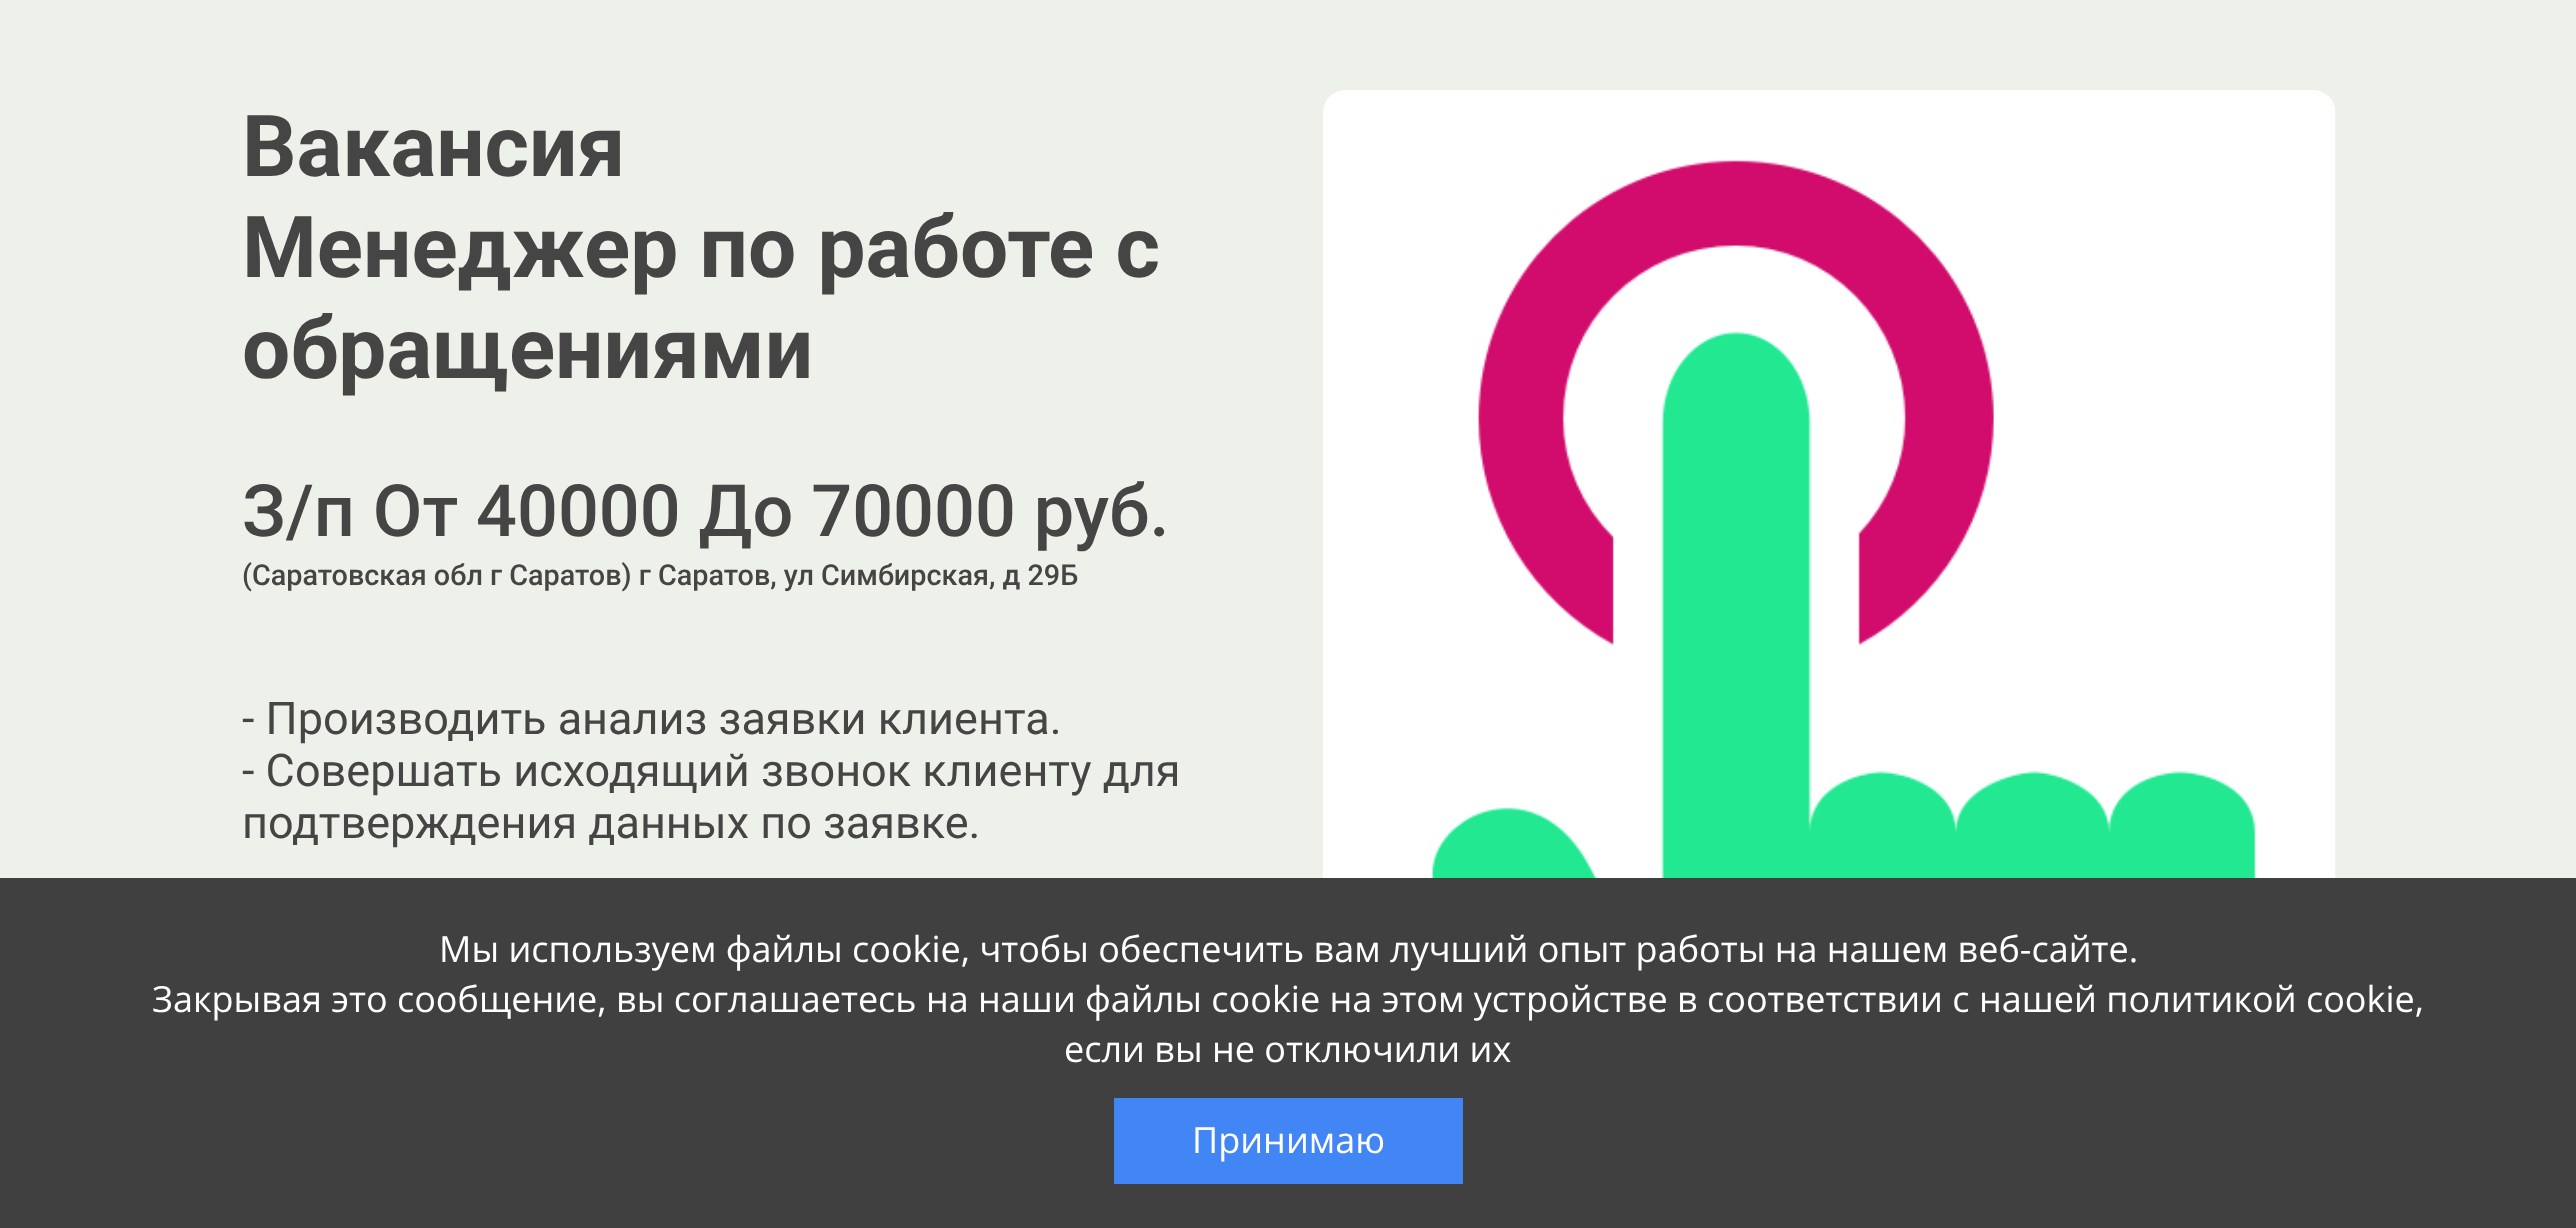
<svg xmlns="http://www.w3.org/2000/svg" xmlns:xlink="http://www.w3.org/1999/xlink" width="2576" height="1228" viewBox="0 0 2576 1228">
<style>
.cls-1{font:bold 85.5px Roboto;fill:#454545}
.cls-2{font:500 72px Roboto;fill:#454545}
.cls-3{font:500 28.8px Roboto;fill:#454545}
.cls-4{font:45px Roboto;fill:#454545}
.cls-5{font:36px Open Sans;fill:#ffffff}
</style>
<rect width="100%" height="100%" fill="#eef1e9"/>
<image xlink:href="image0.png" x="1323" y="90" width="1013" height="788"/>
<rect fill="#404040" x="0" y="878" width="2576" height="350"/>
<rect fill="#4285f4" x="1114" y="1098" width="349" height="86"/>
<text class="cls-1"><tspan x="242" y="176">Вакансия</tspan><tspan x="242" y="277">Менеджер по работе с</tspan><tspan x="242" y="378">обращениями</tspan></text>
<text class="cls-2" x="242" y="536">З/п От 40000 До 70000 руб.</text>
<text class="cls-3" x="242" y="585">(Саратовская обл г Саратов) г Саратов, ул Симбирская, д 29Б</text>
<text class="cls-4"><tspan x="242" y="734">- Производить анализ заявки клиента.</tspan><tspan x="242" y="786">- Совершать исходящий звонок клиенту для</tspan><tspan x="242" y="838">подтверждения данных по заявке.</tspan></text>
<text class="cls-5" x="439" y="962">Мы используем файлы cookie, чтобы обеспечить вам лучший опыт работы на нашем веб-сайте.</text>
<text class="cls-5" x="152" y="1012">Закрывая это сообщение, вы соглашаетесь на наши файлы cookie на этом устройстве в соответствии с нашей политикой cookie,</text>
<text class="cls-5" x="1064" y="1062">если вы не отключили их</text>
<text class="cls-5" x="1192" y="1153">Принимаю</text>
</svg>
